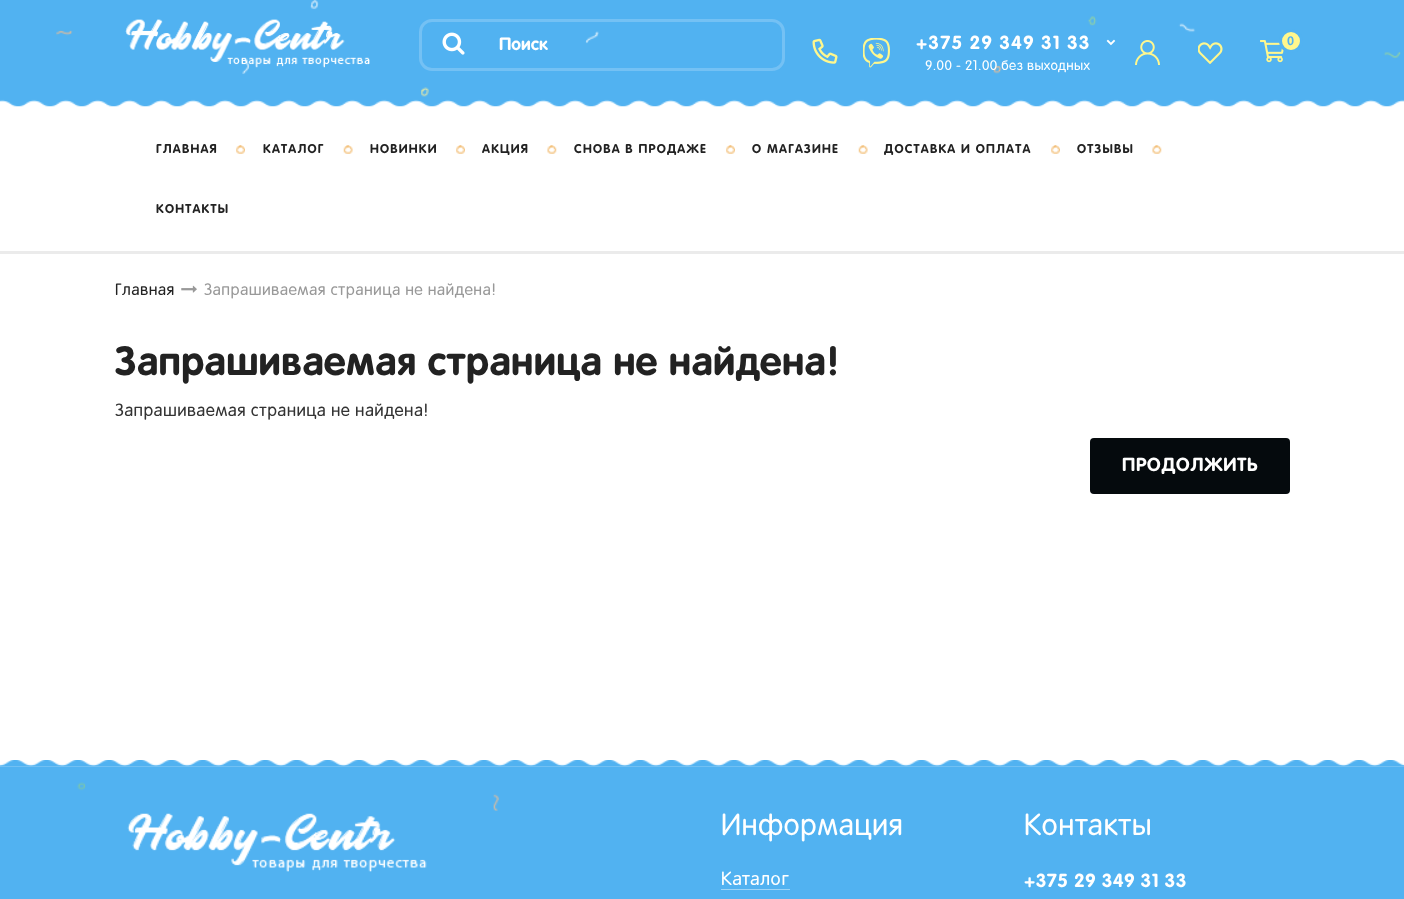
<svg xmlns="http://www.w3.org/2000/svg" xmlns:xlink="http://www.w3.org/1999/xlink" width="1404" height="899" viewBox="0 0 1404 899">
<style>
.cls-1{font:bold 17.5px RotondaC;fill:#ffffff}
.cls-2{font:bold 18.75px RotondaC;letter-spacing:1.1px;fill:#ffffff}
.cls-3{font:13.75px RotondaC;letter-spacing:0.4px;fill:#ffffff}
.cls-4{font:bold 12.5px Ubuntu;fill:#51b2f1}
.cls-5{font:bold 12.5px RotondaC;letter-spacing:1.25px;fill:#222222}
.cls-6{font:16.25px RotondaC;letter-spacing:0.4px;fill:#222222}
.cls-7{font:16.25px RotondaC;letter-spacing:0.4px;fill:#999999}
.cls-8{font:bold 40px RotondaC;letter-spacing:0.4px;fill:#222222}
.cls-9{font:17.5px RotondaC;letter-spacing:0.4px;fill:#333333}
.cls-10{font:bold 18.75px RotondaC;letter-spacing:0.75px;fill:#ffffff}
.cls-11{font:30px RotondaC;letter-spacing:0.4px;fill:#ffffff}
.cls-12{font:18.75px RotondaC;letter-spacing:0.4px;fill:#ffffff}
.cls-13{font:bold 18.75px RotondaC;letter-spacing:0.4px;fill:#ffffff}
</style>
<rect width="100%" height="100%" fill="#ffffff"/>
<image xlink:href="image0.png" x="0" y="0" width="1404" height="107"/>
<image xlink:href="image1.png" x="125" y="19" width="245" height="49"/>
<rect fill="none" stroke="#74c1f4" stroke-width="3" x="420.5" y="20.5" width="363" height="49" rx="11.5"/>
<image xlink:href="image2.png" x="442" y="32" width="23" height="23"/>
<image xlink:href="image3.png" x="863" y="38" width="27" height="30"/>
<image xlink:href="image4.png" x="812" y="38" width="26" height="26"/>
<image xlink:href="image5.png" x="1106" y="39" width="10" height="7"/>
<image xlink:href="image6.png" x="1135" y="40" width="25" height="25"/>
<image xlink:href="image7.png" x="1198" y="42" width="25" height="22"/>
<image xlink:href="image8.png" x="1260" y="40" width="24" height="23"/>
<circle fill="#fff78d" stroke="#51b2f1" stroke-width="3" cx="1291" cy="41" r="10.5"/>
<rect fill="#ebebeb" x="0" y="251" width="1404" height="3"/>
<image xlink:href="image9.png" x="236" y="145" width="9" height="9"/>
<image xlink:href="image10.png" x="343" y="145" width="10" height="9"/>
<image xlink:href="image9.png" x="456" y="145" width="9" height="9"/>
<image xlink:href="image11.png" x="547" y="145" width="10" height="9"/>
<image xlink:href="image9.png" x="726" y="145" width="9" height="9"/>
<image xlink:href="image10.png" x="858" y="145" width="10" height="9"/>
<image xlink:href="image9.png" x="1051" y="145" width="9" height="9"/>
<image xlink:href="image12.png" x="1152" y="145" width="10" height="9"/>
<image xlink:href="image13.png" x="181" y="285" width="16" height="8"/>
<rect fill="#050a0d" x="1090" y="438" width="200" height="56" rx="4"/>
<image xlink:href="image14.png" x="0" y="766" width="1404" height="45"/>
<image xlink:href="image15.png" x="0" y="760" width="1404" height="7"/>
<rect fill="#51b2f1" x="0" y="811" width="1404" height="88"/>
<image xlink:href="image16.png" x="127" y="813" width="300" height="59"/>
<rect fill="#9ed4f6" x="721" y="889" width="69" height="1"/>
<text class="cls-1" x="499" y="50">Поиск</text>
<text class="cls-2" x="916" y="49">+375 29 349 31 33</text>
<text class="cls-3" x="925" y="70">9.00 - 21.00 без выходных</text>
<text class="cls-4" x="1287" y="45">0</text>
<text class="cls-5" x="156" y="153">ГЛАВНАЯ</text>
<text class="cls-5" x="263" y="153">КАТАЛОГ</text>
<text class="cls-5" x="370" y="153">НОВИНКИ</text>
<text class="cls-5" x="482" y="153">АКЦИЯ</text>
<text class="cls-5" x="574" y="153">СНОВА В ПРОДАЖЕ</text>
<text class="cls-5" x="752" y="153">О МАГАЗИНЕ</text>
<text class="cls-5" x="884" y="153">ДОСТАВКА И ОПЛАТА</text>
<text class="cls-5" x="1077" y="153">ОТЗЫВЫ</text>
<text class="cls-5" x="156" y="213">КОНТАКТЫ</text>
<text class="cls-6" x="115" y="295">Главная</text>
<text class="cls-7" x="204" y="295">Запрашиваемая страница не найдена!</text>
<text class="cls-8" x="115" y="375">Запрашиваемая страница не найдена!</text>
<text class="cls-9" x="115" y="416">Запрашиваемая страница не найдена!</text>
<text class="cls-10" x="1122" y="471">ПРОДОЛЖИТЬ</text>
<text class="cls-11" x="721" y="835">Информация</text>
<text class="cls-12" x="721" y="885">Каталог</text>
<text class="cls-11" x="1024" y="835">Контакты</text>
<text class="cls-13" x="1024" y="887">+375 29 349 31 33</text>
</svg>
